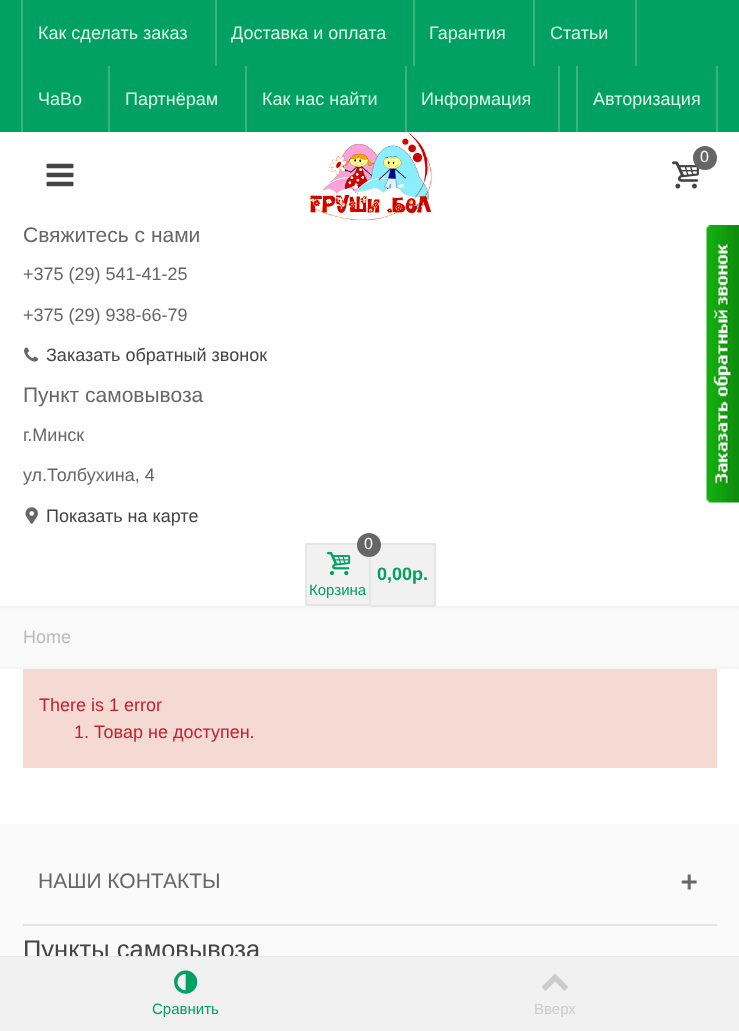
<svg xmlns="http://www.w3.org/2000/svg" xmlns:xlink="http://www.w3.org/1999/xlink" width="739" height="1031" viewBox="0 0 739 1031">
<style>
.cls-1{font:18px Liberation Sans;fill:#d8f6e6}
.cls-2{font:16px Liberation Sans;fill:#ffffff}
.cls-3{font:21px Liberation Sans;fill:#666666}
.cls-4{font:18px Liberation Sans;fill:#666666}
.cls-5{font:18px Liberation Sans;fill:#444444}
.cls-6{font:15px Liberation Sans;fill:#00a161}
.cls-7{font:bold 18px Liberation Sans;fill:#00a161}
.cls-8{font:18px Liberation Sans;fill:#bbbbbb}
.cls-9{font:18px Liberation Sans;fill:#c02230}
.cls-10{font:25.5px Liberation Sans;fill:#444444}
.cls-11{font:15px Liberation Sans;fill:#cccccc}
</style>
<defs>
<linearGradient id="g1" gradientUnits="userSpaceOnUse" x1="370" y1="606" x2="370" y2="669"><stop offset="0" stop-color="#f2f2f2"/><stop offset="0.05" stop-color="#f9f9f9"/><stop offset="0.95" stop-color="#f9f9f9"/><stop offset="1" stop-color="#f2f2f2"/></linearGradient>
</defs>
<rect width="100%" height="100%" fill="#ffffff"/>
<rect fill="#00a161" x="0" y="0" width="739" height="132"/>
<rect fill="#3ab47b" x="215" y="0" width="2" height="66"/>
<rect fill="#3ab47b" x="21" y="0" width="2" height="132"/>
<rect fill="#3ab47b" x="413" y="0" width="2" height="66"/>
<rect fill="#3ab47b" x="533" y="0" width="2" height="66"/>
<rect fill="#3ab47b" x="635" y="0" width="2" height="66"/>
<rect fill="#3ab47b" x="108" y="66" width="2" height="66"/>
<rect fill="#3ab47b" x="245" y="66" width="2" height="66"/>
<rect fill="#3ab47b" x="405" y="66" width="2" height="66"/>
<rect fill="#3ab47b" x="558" y="66" width="2" height="66"/>
<rect fill="#3ab47b" x="716" y="66" width="2" height="66"/>
<rect fill="#3ab47b" x="576" y="66" width="2" height="66"/>
<image xlink:href="image0.png" x="310" y="132" width="122" height="89"/>
<image xlink:href="image1.png" x="672" y="161" width="27" height="28"/>
<circle fill="#666666" cx="705" cy="158" r="12"/>
<image xlink:href="image2.png" x="46" y="163" width="28" height="24"/>
<image xlink:href="image3.png" x="24" y="347" width="15" height="15"/>
<image xlink:href="image4.png" x="25" y="507" width="13" height="17"/>
<rect fill="#f1f1f1" stroke="#e5e5e5" stroke-width="2" x="306" y="544" width="64" height="61"/>
<rect fill="#f1f1f1" x="371" y="545" width="63" height="60"/>
<rect fill="#e5e5e5" x="380" y="543" width="55" height="2"/>
<circle fill="#666666" cx="369" cy="545" r="12"/>
<image xlink:href="image5.png" x="327" y="551" width="24" height="25"/>
<rect fill="#e5e5e5" x="434" y="543" width="2" height="63"/>
<rect fill="url(#g1)" x="0" y="606" width="739" height="63"/>
<rect fill="#e5e5e5" x="371" y="605" width="64" height="2"/>
<rect fill="#f5dad3" x="23" y="669" width="694" height="99"/>
<rect fill="#fafafa" x="0" y="824" width="739" height="132"/>
<rect fill="#e5e5e5" x="23" y="924" width="694" height="2"/>
<image xlink:href="image6.png" x="681" y="874" width="16" height="16"/>
<image xlink:href="image7.png" x="706" y="225" width="33" height="278"/>
<text class="cls-1" x="38" y="39">Как сделать заказ</text>
<text class="cls-1" x="231" y="39">Доставка и оплата</text>
<text class="cls-1" x="429" y="39">Гарантия</text>
<text class="cls-1" x="550" y="39">Статьи</text>
<text class="cls-1" x="38" y="105">ЧаВо</text>
<text class="cls-1" x="125" y="105">Партнёрам</text>
<text class="cls-1" x="262" y="105">Как нас найти</text>
<text class="cls-1" x="421" y="105">Информация</text>
<text class="cls-1" x="593" y="105">Авторизация</text>
<text class="cls-2" x="700" y="162">0</text>
<text class="cls-3" x="23" y="242">Свяжитесь с нами</text>
<text class="cls-4" x="23" y="280">+375 (29) 541-41-25</text>
<text class="cls-4" x="23" y="321">+375 (29) 938-66-79</text>
<text class="cls-5" x="46" y="361">Заказать обратный звонок</text>
<text class="cls-3" x="23" y="402">Пункт самовывоза</text>
<text class="cls-4" x="23" y="441">г.Минск</text>
<text class="cls-4" x="23" y="481">ул.Толбухина, 4</text>
<text class="cls-5" x="46" y="522">Показать на карте</text>
<text class="cls-2" x="364" y="549">0</text>
<text class="cls-6" x="309" y="595">Корзина</text>
<text class="cls-7" x="377" y="580">0,00р.</text>
<text class="cls-8" x="23" y="643">Home</text>
<text class="cls-9" x="39" y="711">There is 1 error</text>
<text class="cls-9" x="74" y="738">1. Товар не доступен.</text>
<text class="cls-3" x="38" y="888">НАШИ КОНТАКТЫ</text>
<text class="cls-10" x="23" y="958">Пункты самовывоза</text>
<rect fill="#e5e5e5" x="0" y="956" width="739" height="1"/>
<rect fill="#f1f1f1" x="0" y="957" width="739" height="74"/>
<image xlink:href="image8.png" x="174" y="970" width="24" height="24"/>
<text class="cls-6" x="152" y="1014">Сравнить</text>
<path fill="#cccccc" d="M541.5 987L555 973.5L568.5 987L564.5 991L555 981.5L545.5 991Z"/>
<text class="cls-11" x="534" y="1014">Вверх</text>
</svg>
